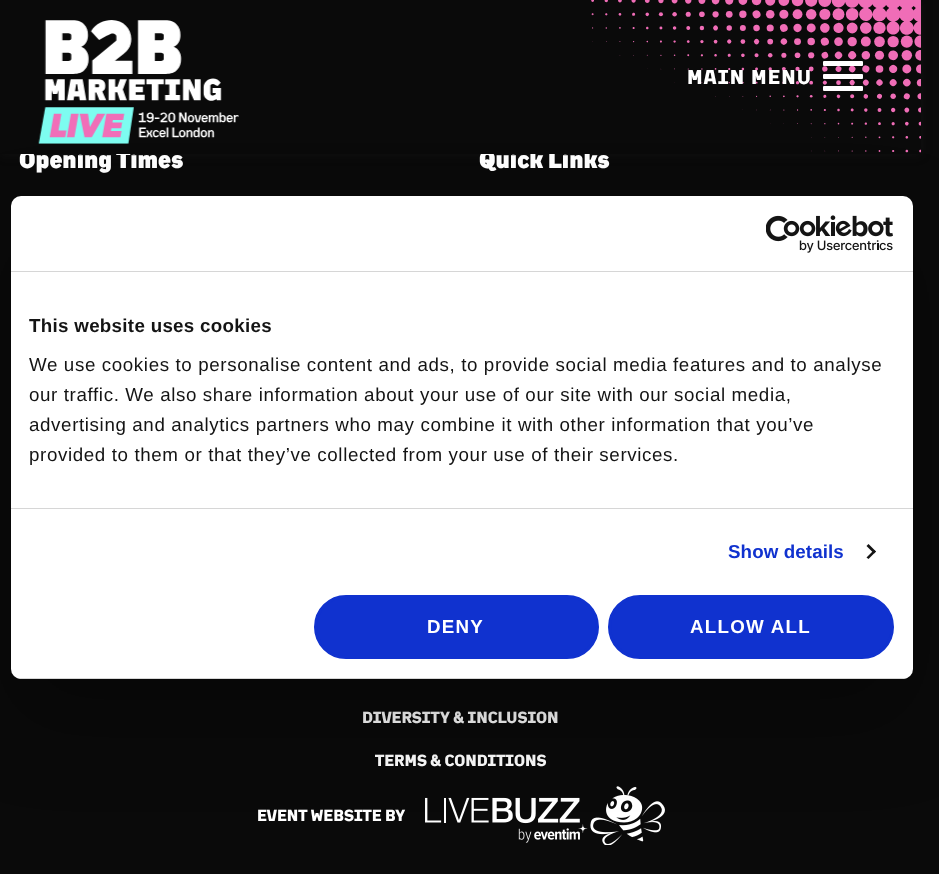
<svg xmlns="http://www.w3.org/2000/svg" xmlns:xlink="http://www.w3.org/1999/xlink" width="939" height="874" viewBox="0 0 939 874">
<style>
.cls-1{font:900 24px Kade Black;fill:#ffffff}
.cls-2{font:bold 20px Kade;letter-spacing:1.25px;fill:#ffffff}
.cls-3{font:bold 16px Kade;fill:#ffffff}
.cls-4{font:bold 18.75px Liberation Sans;letter-spacing:0.3px;fill:#141414}
.cls-5{font:18.75px Liberation Sans;letter-spacing:0.62px;fill:#141414}
.cls-6{font:bold 18.75px Liberation Sans;letter-spacing:0.1px;fill:#1032cf}
.cls-7{font:bold 18.75px Liberation Sans;letter-spacing:1.25px;fill:#ffffff}
</style>
<defs>
<clipPath id="clip1"><rect x="11" y="196" width="902" height="483" rx="10"/></clipPath>
</defs>
<rect width="100%" height="100%" fill="#0a0a0a"/>
<rect fill="#2c2c2c" fill-opacity="0.2" filter="blur(6px)" x="0" y="0" width="921" height="154"/>
<image xlink:href="image2.png" x="425" y="786" width="240" height="59"/>
<text class="cls-1" x="19" y="168">Opening Times</text>
<text class="cls-1" x="479" y="168">Quick Links</text>
<rect fill="#0a0a0a" x="0" y="0" width="921" height="154"/>
<image xlink:href="image1.png" x="38" y="20" width="201" height="124"/>
<image xlink:href="image0.png" x="591" y="0" width="330" height="153"/>
<rect fill="#ffffff" x="823" y="86" width="40" height="5" rx="1"/>
<rect fill="#ffffff" x="823" y="61" width="40" height="5" rx="1"/>
<rect fill="#ffffff" x="823" y="74" width="40" height="5" rx="1"/>
<text class="cls-2" x="687" y="84">MAIN MENU</text>
<text class="cls-3" x="362" y="723">DIVERSITY &amp; INCLUSION</text>
<text class="cls-3" x="375" y="766">TERMS &amp; CONDITIONS</text>
<text class="cls-3" x="257" y="821">EVENT WEBSITE BY</text>
<rect fill="#000000" fill-opacity="0.3" filter="blur(42.5px)" x="11" y="236" width="902" height="483" rx="10"/>
<rect fill="#ffffff" x="11" y="196" width="902" height="483" rx="10"/>
<rect fill="#d6d6d6" x="11" y="271" width="902" height="1"/>
<image xlink:href="image3.png" x="766" y="215" width="127" height="38"/>
<rect fill="#d6d6d6" x="11" y="508" width="902" height="1"/>
<text class="cls-4" x="29" y="332">This website uses cookies</text>
<text class="cls-5"><tspan x="29" y="371">We use cookies to personalise content and ads, to provide social media features and to analyse</tspan><tspan x="29" y="401">our traffic. We also share information about your use of our site with our social media,</tspan><tspan x="29" y="431">advertising and analytics partners who may combine it with other information that you’ve</tspan><tspan x="29" y="461">provided to them or that they’ve collected from your use of their services.</tspan></text>
<text class="cls-6" x="728" y="558">Show details</text>
<path fill="#141414" d="M868.5 544L876 551.5L874 553.5L866.5 546Z"/>
<path fill="#141414" d="M874 550L876 551.5L868.5 559L866.5 557.5Z"/>
<g clip-path="url(#clip1)">
<rect fill="#d6d6d6" x="11" y="678" width="902" height="1"/>
</g>
<rect fill="#1032cf" stroke="#1032cf" stroke-width="3" x="315.5" y="596.5" width="282" height="61" rx="30.5"/>
<text class="cls-7" x="427" y="633">DENY</text>
<rect fill="#1032cf" stroke="#1032cf" stroke-width="3" x="609.5" y="596.5" width="283" height="61" rx="30.5"/>
<text class="cls-7" x="690" y="633">ALLOW ALL</text>
</svg>
